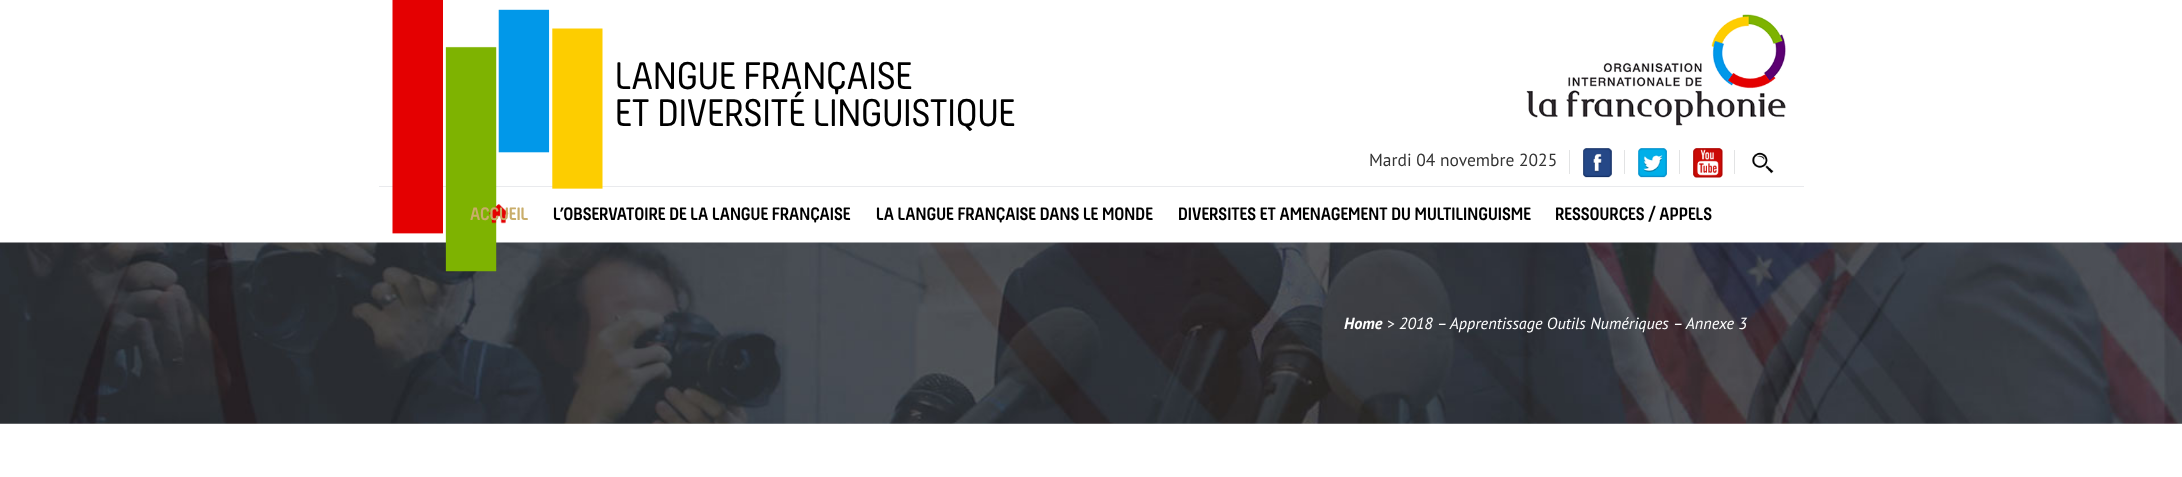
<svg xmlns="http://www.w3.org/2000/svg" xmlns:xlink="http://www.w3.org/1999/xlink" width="2182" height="477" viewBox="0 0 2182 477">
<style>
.cls-1{font:40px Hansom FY;fill:#000000}
.cls-2{font:17.5px PT Sans;fill:#333333}
.cls-3{font:bold 18.75px Hansom FY;fill:#c9ad6a}
.cls-4{font:bold 18.75px Hansom FY;fill:#000000}
.cls-5{font:italic bold 16.25px PT Sans;fill:#ffffff}
.cls-6{font:italic 15px PT Sans;fill:#ffffff}
.cls-7{font:italic 16.25px PT Sans;fill:#ffffff}
</style>
<rect width="100%" height="100%" fill="#ffffff"/>
<rect fill="#e9eaed" x="379" y="186" width="1425" height="1"/>
<image xlink:href="image7.png" x="0" y="242" width="2182" height="182"/>
<image xlink:href="image0.png" x="392" y="0" width="211" height="272"/>
<image xlink:href="image1.png" x="1526" y="14" width="260" height="112"/>
<rect fill="#e2e3e4" x="1569" y="150" width="1" height="24"/>
<image xlink:href="image2.png" x="1583" y="148" width="29" height="30"/>
<rect fill="#e2e3e4" x="1624" y="150" width="1" height="24"/>
<image xlink:href="image3.png" x="1638" y="148" width="29" height="30"/>
<rect fill="#e2e3e4" x="1679" y="150" width="1" height="24"/>
<image xlink:href="image4.png" x="1693" y="148" width="30" height="30"/>
<rect fill="#e2e3e4" x="1734" y="150" width="1" height="24"/>
<image xlink:href="image5.png" x="1752" y="152" width="22" height="22"/>
<image xlink:href="image6.png" x="489" y="204" width="20" height="20"/>
<text class="cls-1"><tspan x="615" y="89">LANGUE FRANÇAISE</tspan><tspan x="615" y="126">ET DIVERSITÉ LINGUISTIQUE</tspan></text>
<text class="cls-2" x="1369" y="166">Mardi 04 novembre 2025</text>
<text class="cls-3" x="470" y="220">ACCUEIL</text>
<text class="cls-4" x="553" y="220">L’OBSERVATOIRE DE LA LANGUE FRANÇAISE</text>
<text class="cls-4" x="876" y="220">LA LANGUE FRANÇAISE DANS LE MONDE</text>
<text class="cls-4" x="1178" y="220">DIVERSITES ET AMENAGEMENT DU MULTILINGUISME</text>
<text class="cls-4" x="1555" y="220">RESSOURCES / APPELS</text>
<text class="cls-5" x="1344" y="329">Home</text>
<text class="cls-6" x="1387" y="329">&gt;</text>
<text class="cls-7" x="1399" y="329">2018 – Apprentissage Outils Numériques – Annexe 3</text>
</svg>
